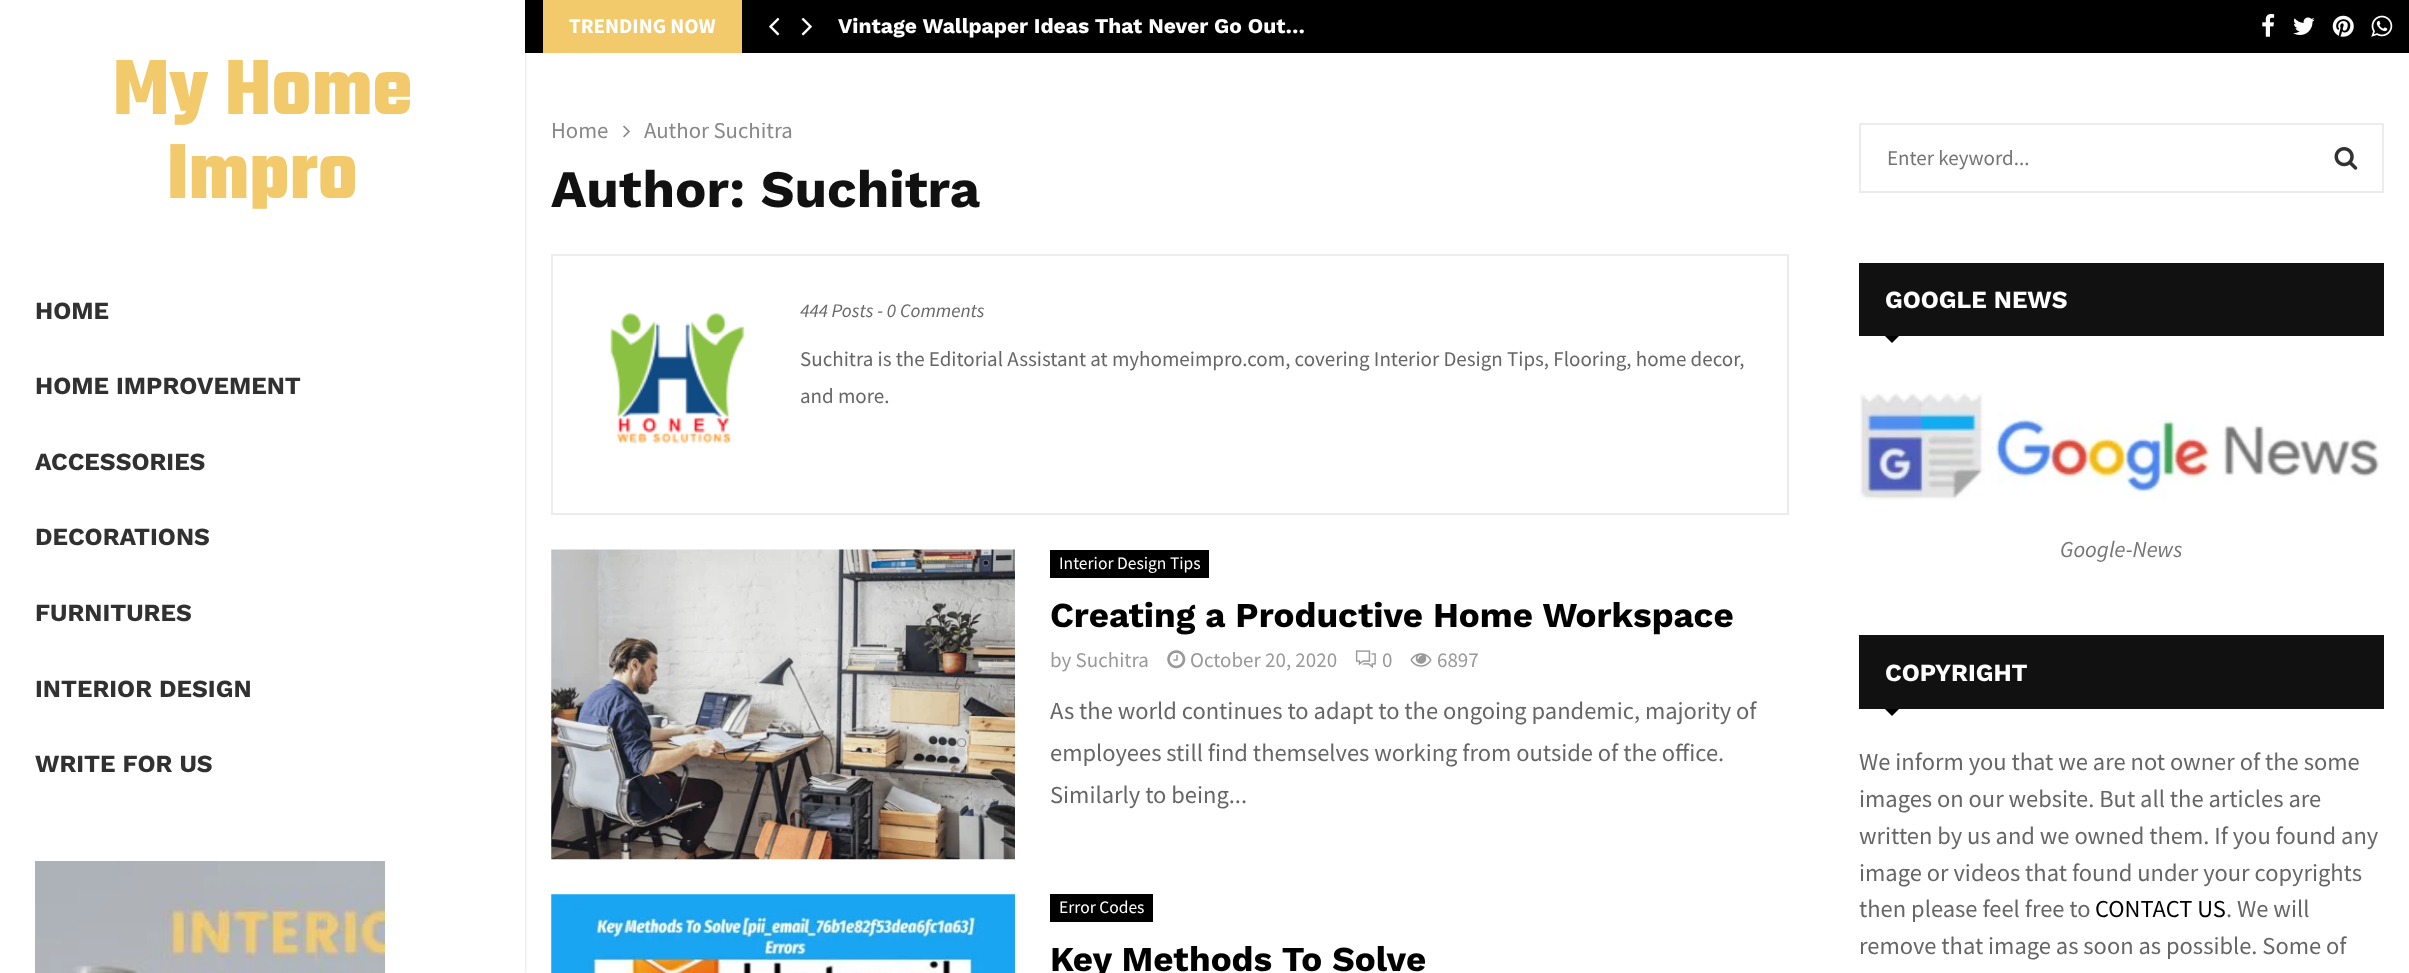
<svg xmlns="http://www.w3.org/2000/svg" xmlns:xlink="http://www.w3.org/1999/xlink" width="2409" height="973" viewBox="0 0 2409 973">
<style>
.cls-1{font:bold 84px Teko;fill:#f2ca6b}
.cls-2{font:bold 24.5px Work Sans;fill:#313131}
.cls-3{font:bold 21px Source Sans Pro;fill:#ffffff}
.cls-4{font:bold 21px Work Sans;fill:#ffffff}
.cls-5{font:22.75px Source Sans Pro;fill:#888888}
.cls-6{font:bold 52.5px Work Sans;fill:#111111}
.cls-7{font:italic 19.25px Source Sans Pro;fill:#666666}
.cls-8{font:21px Source Sans Pro;fill:#666666}
.cls-9{font:17.5px Source Sans Pro;fill:#ffffff}
.cls-10{font:bold 35px Work Sans;fill:#000000}
.cls-11{font:21px Source Sans Pro;fill:#999999}
.cls-12{font:24.5px Source Sans Pro;fill:#666666}
.cls-13{font:21px Source Sans Pro;fill:#757575}
.cls-14{font:bold 24.5px Work Sans;fill:#ffffff}
.cls-15{font:italic 22.75px Source Sans Pro;fill:#757575}
.cls-16{font:24.5px Source Sans Pro;fill:#000000}
</style>
<defs>
<clipPath id="clip1"><rect x="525" y="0" width="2" height="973"/></clipPath>
<clipPath id="clip2"><rect x="525" y="123" width="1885" height="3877"/></clipPath>
</defs>
<rect width="100%" height="100%" fill="#ffffff"/>
<rect fill="#000000" x="525" y="0" width="1884" height="53"/>
<g clip-path="url(#clip1)">
<rect fill="#000000" fill-opacity="0.15" filter="blur(2px)" x="0" y="0" width="525" height="973"/>
</g>
<image xlink:href="image0.png" x="35" y="861" width="350" height="112"/>
<rect fill="#f2ca6b" x="543" y="0" width="199" height="53"/>
<image xlink:href="image1.png" x="769" y="17" width="11" height="19"/>
<image xlink:href="image2.png" x="801" y="17" width="11" height="19"/>
<image xlink:href="image3.png" x="2262" y="14" width="13" height="23"/>
<image xlink:href="image4.png" x="2293" y="17" width="22" height="18"/>
<image xlink:href="image5.png" x="2332" y="15" width="22" height="22"/>
<image xlink:href="image6.png" x="2371" y="15" width="22" height="22"/>
<image xlink:href="image7.png" x="623" y="125" width="7" height="13"/>
<rect fill="none" stroke="#ececec" stroke-width="2" x="552" y="255" width="1236" height="259"/>
<image xlink:href="image8.png" x="610" y="312" width="135" height="132"/>
<image xlink:href="image9.png" x="551" y="549" width="464" height="311"/>
<rect fill="#000000" x="1050" y="550" width="159" height="28"/>
<image xlink:href="image10.png" x="1167" y="650" width="19" height="19"/>
<image xlink:href="image11.png" x="1355" y="650" width="21" height="19"/>
<image xlink:href="image12.png" x="1410" y="653" width="22" height="14"/>
<rect fill="#f5f5f5" x="551" y="894" width="464" height="79"/>
<image xlink:href="image13.png" x="551" y="894" width="464" height="79"/>
<rect fill="#000000" x="1050" y="894" width="103" height="28"/>
<rect fill="none" stroke="#ececec" stroke-width="2" x="1860" y="124" width="523" height="68"/>
<image xlink:href="image14.png" x="2334" y="147" width="24" height="23"/>
<rect fill="#111111" x="1859" y="263" width="525" height="73"/>
<path fill="#000000" d="M1885 336H1899L1892 343Z"/>
<image xlink:href="image15.png" x="1858" y="393" width="521" height="108"/>
<rect fill="#111111" x="1859" y="635" width="525" height="74"/>
<path fill="#000000" d="M1885 709H1899L1892 716Z"/>
<text class="cls-1" x="113" y="114">My Home</text>
<text class="cls-1" x="167" y="198">Impro</text>
<text class="cls-2" x="35" y="319">HOME</text>
<text class="cls-2" x="35" y="394">HOME IMPROVEMENT</text>
<text class="cls-2" x="35" y="470">ACCESSORIES</text>
<text class="cls-2" x="35" y="545">DECORATIONS</text>
<text class="cls-2" x="35" y="621">FURNITURES</text>
<text class="cls-2" x="35" y="697">INTERIOR DESIGN</text>
<text class="cls-2" x="35" y="772">WRITE FOR US</text>
<text class="cls-3" x="569" y="33">TRENDING NOW</text>
<text class="cls-4" x="838" y="33">Vintage Wallpaper Ideas That Never Go Out…</text>
<text class="cls-5" x="551" y="138">Home</text>
<g clip-path="url(#clip2)">
<text class="cls-5" x="644" y="138">Author Suchitra</text>
</g>
<text class="cls-6" x="551" y="207">Author: Suchitra</text>
<text class="cls-7" x="800" y="317">444 Posts - 0 Comments</text>
<text class="cls-8"><tspan x="800" y="366">Suchitra is the Editorial Assistant at myhomeimpro.com, covering Interior Design Tips, Flooring, home decor,</tspan><tspan x="800" y="403">and more.</tspan></text>
<text class="cls-9" x="1059" y="569">Interior Design Tips</text>
<text class="cls-10" x="1050" y="627">Creating a Productive Home Workspace</text>
<text class="cls-11" x="1050" y="667">by Suchitra</text>
<text class="cls-11" x="1190" y="667">October 20, 2020</text>
<text class="cls-11" x="1382" y="667">0</text>
<text class="cls-11" x="1437" y="667">6897</text>
<text class="cls-12"><tspan x="1050" y="719">As the world continues to adapt to the ongoing pandemic, majority of</tspan><tspan x="1050" y="761">employees still find themselves working from outside of the office.</tspan><tspan x="1050" y="803">Similarly to being...</tspan></text>
<text class="cls-9" x="1059" y="913">Error Codes</text>
<text class="cls-10" x="1050" y="971">Key Methods To Solve</text>
<text class="cls-13" x="1887" y="165">Enter keyword...</text>
<text class="cls-14" x="1885" y="308">GOOGLE NEWS</text>
<text class="cls-15" x="2060" y="557">Google-News</text>
<text class="cls-14" x="1885" y="681">COPYRIGHT</text>
<text class="cls-12"><tspan x="1859" y="770">We inform you that we are not owner of the some</tspan><tspan x="1859" y="807">images on our website. But all the articles are</tspan><tspan x="1859" y="844">written by us and we owned them. If you found any</tspan><tspan x="1859" y="881">image or videos that found under your copyrights</tspan><tspan x="1859" y="917">then please feel free to</tspan></text>
<text class="cls-16" x="2095" y="917">CONTACT US</text>
<text class="cls-12" x="2226" y="917">. We will</text>
<text class="cls-12" x="1859" y="954">remove that image as soon as possible. Some of</text>
</svg>
